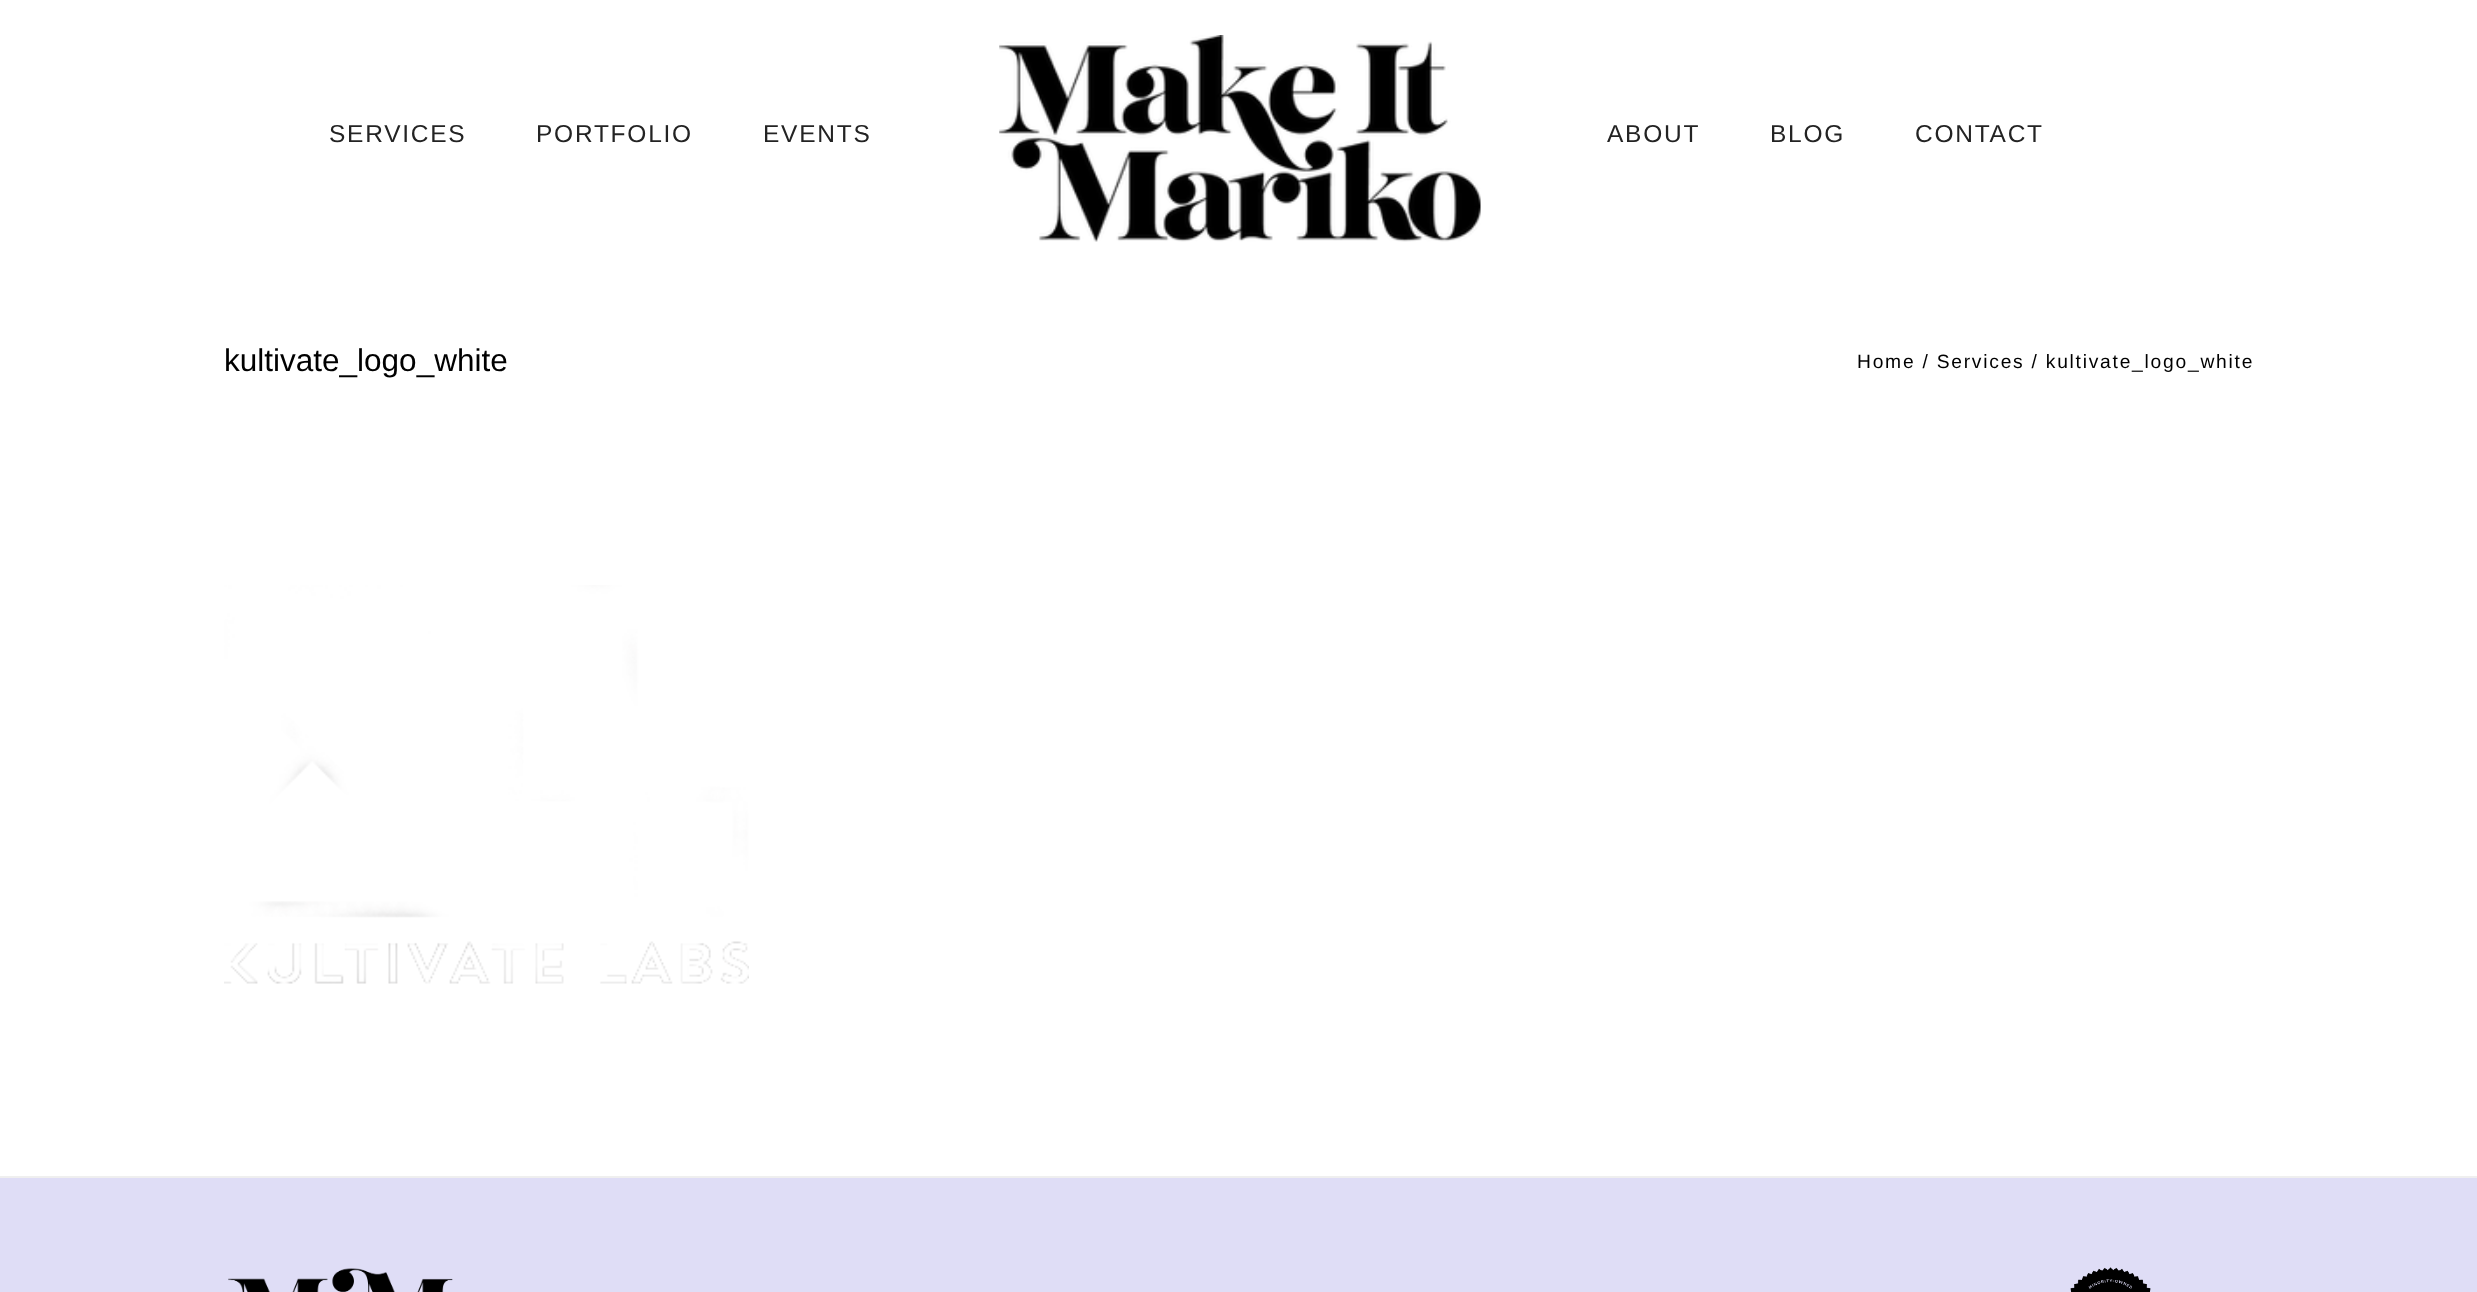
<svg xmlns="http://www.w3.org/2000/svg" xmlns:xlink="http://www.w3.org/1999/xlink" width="2477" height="1292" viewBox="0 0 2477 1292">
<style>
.cls-1{font:24.5px Liberation Sans;letter-spacing:1.75px;fill:#232323}
.cls-2{font:31.5px Liberation Sans;fill:#000000}
.cls-3{font:19.25px Liberation Sans;letter-spacing:1.75px;fill:#000000}
</style>
<rect width="100%" height="100%" fill="#ffffff"/>
<image xlink:href="image0.png" x="999" y="35" width="482" height="207"/>
<image xlink:href="image1.png" x="224" y="585" width="525" height="399"/>
<rect fill="#dfddf6" x="0" y="1178" width="2477" height="114"/>
<rect fill="#efefef" x="0" y="1176" width="2477" height="2"/>
<image xlink:href="image2.png" x="228" y="1268" width="225" height="24"/>
<image xlink:href="image3.png" x="2070" y="1267" width="81" height="25"/>
<text class="cls-1" x="329" y="142">SERVICES</text>
<text class="cls-1" x="536" y="142">PORTFOLIO</text>
<text class="cls-1" x="763" y="142">EVENTS</text>
<text class="cls-1" x="1607" y="142">ABOUT</text>
<text class="cls-1" x="1770" y="142">BLOG</text>
<text class="cls-1" x="1915" y="142">CONTACT</text>
<text class="cls-2" x="224" y="371">kultivate_logo_white</text>
<text class="cls-3" x="1857" y="368">Home / Services / kultivate_logo_white</text>
</svg>
